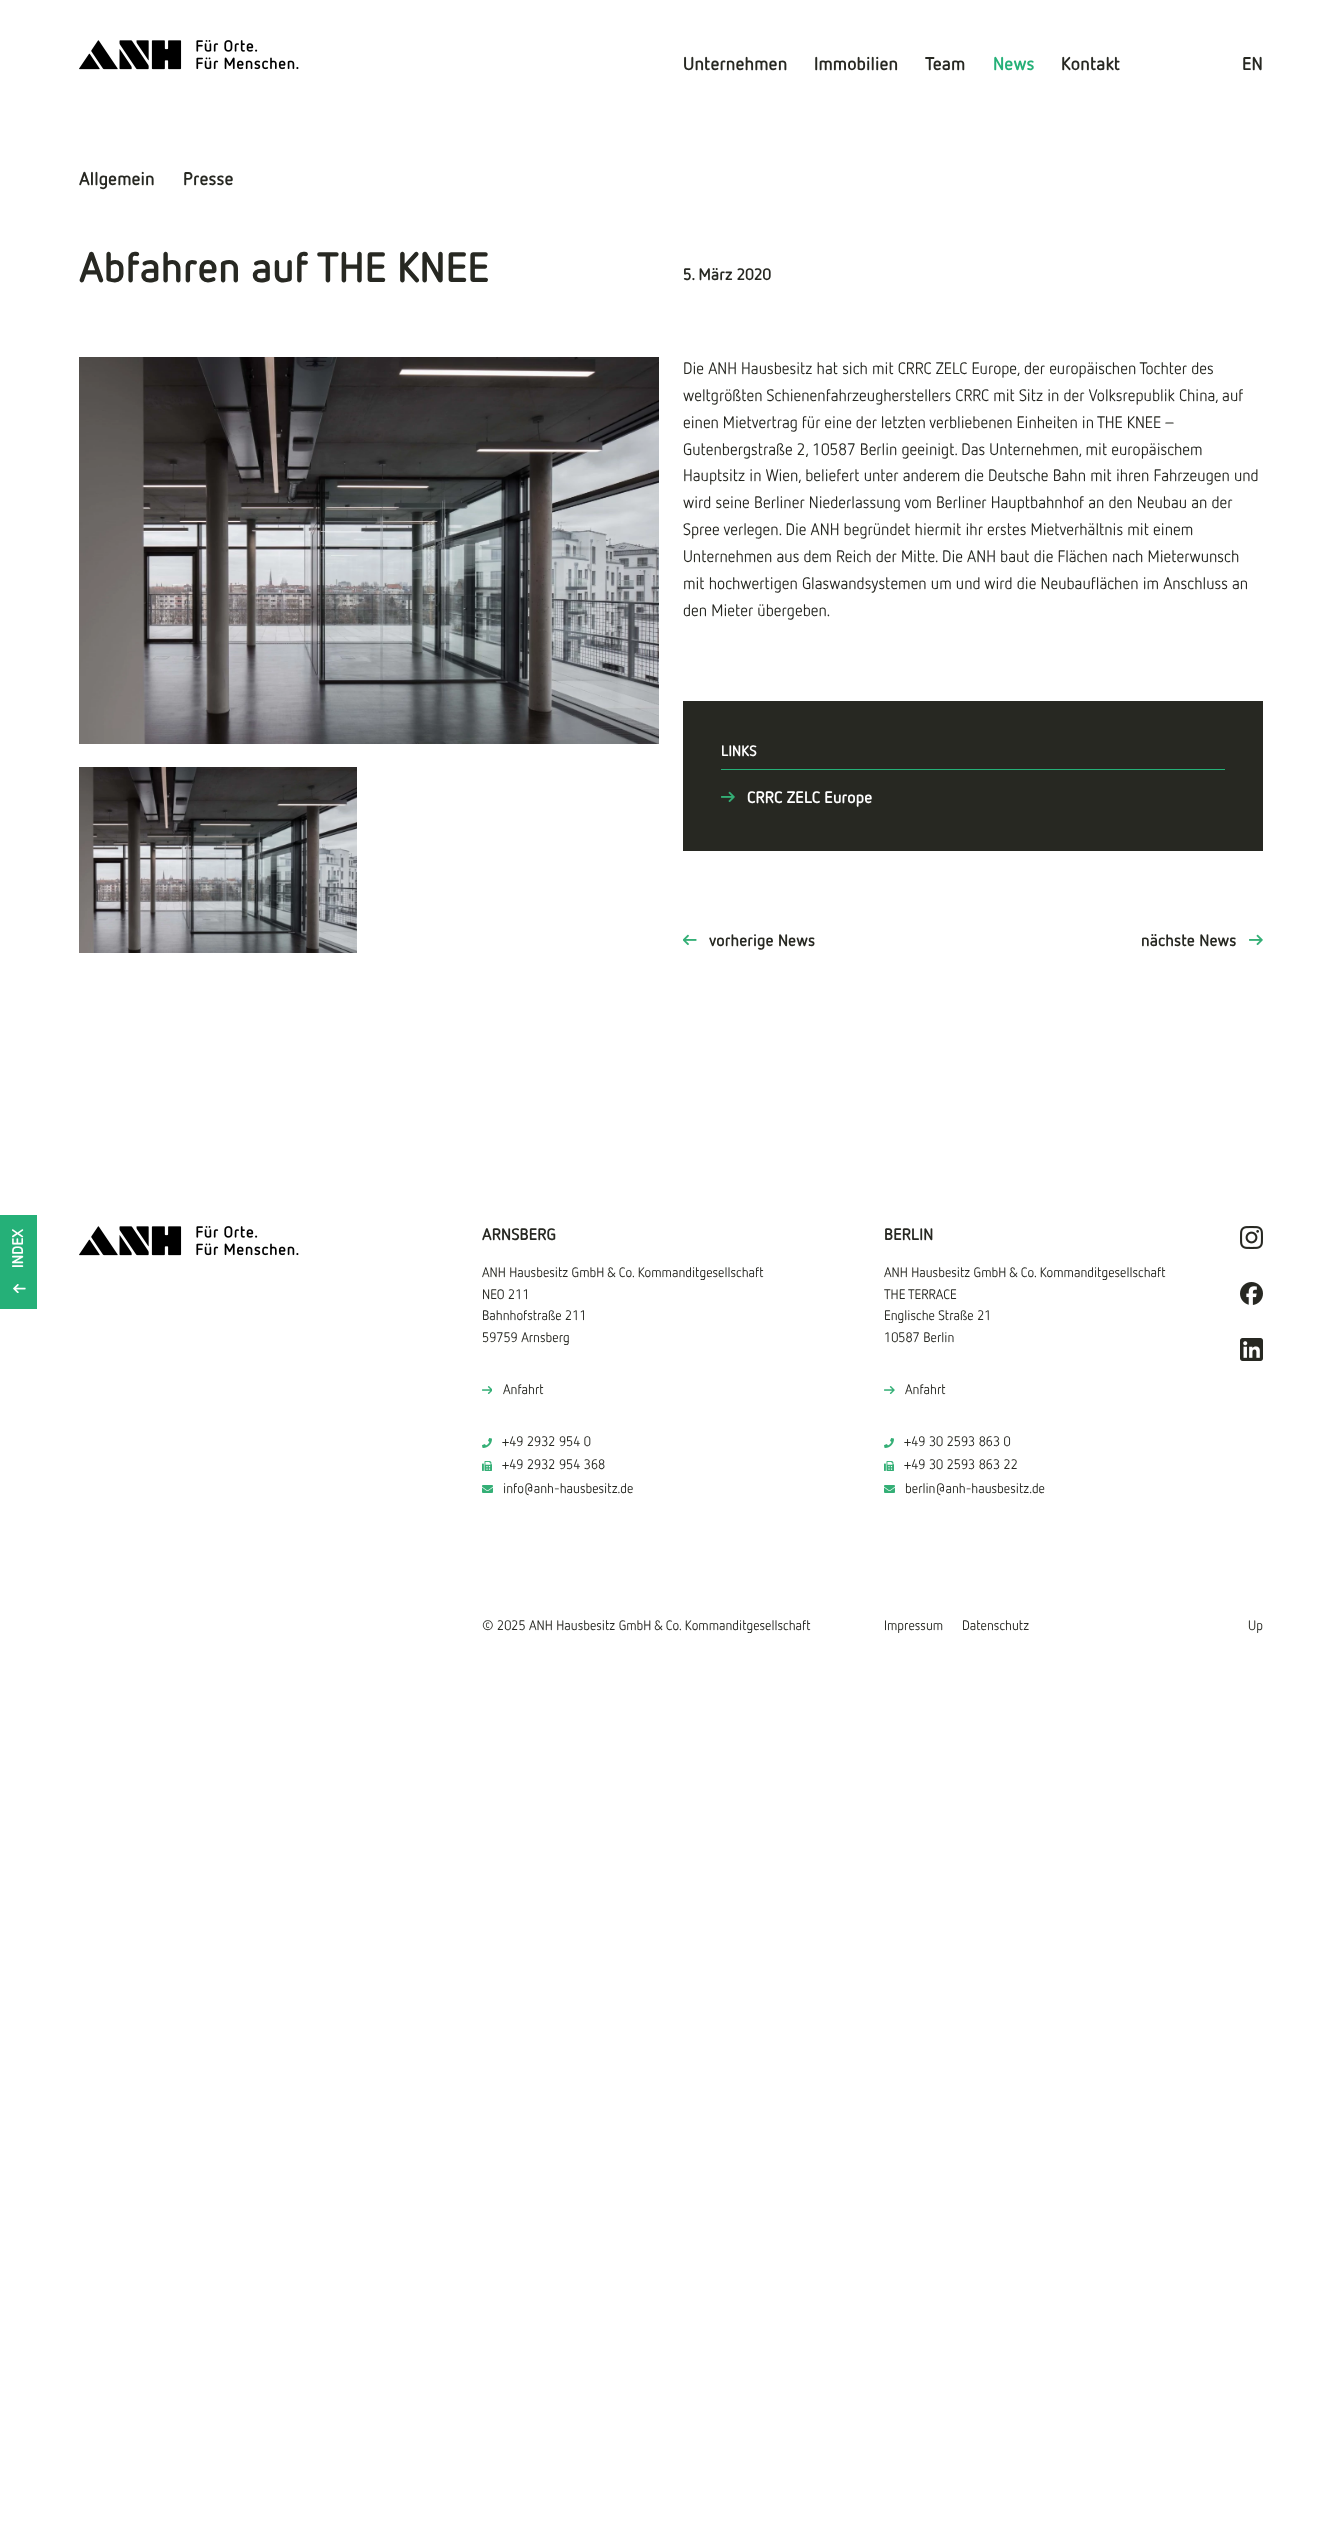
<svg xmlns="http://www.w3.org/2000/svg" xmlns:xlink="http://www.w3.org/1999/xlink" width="1342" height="2523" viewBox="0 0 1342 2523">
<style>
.cls-1{font:bold 18.5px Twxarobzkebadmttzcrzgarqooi;fill:#272822}
.cls-2{font:bold 18.5px Twxarobzkebadmttzcrzgarqooi;fill:#25b078}
.cls-3{font:bold 42.5px Twxarobzkebadmttzcrzgarqooi;fill:#272822}
.cls-4{font:bold 16.65px Twxarobzkebadmttzcrzgarqooi;fill:#272822}
.cls-5{font:16.65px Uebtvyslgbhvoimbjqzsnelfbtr;fill:#272822}
.cls-6{font:bold 15px Twxarobzkebadmttzcrzgarqooi;fill:#ffffff}
.cls-7{font:bold 16.65px Twxarobzkebadmttzcrzgarqooi;fill:#ffffff}
.cls-8{font:bold 15.5px Twxarobzkebadmttzcrzgarqooi;fill:#ffffff}
.cls-9{font:13.75px Uebtvyslgbhvoimbjqzsnelfbtr;fill:#272822}
</style>
<rect width="100%" height="100%" fill="#ffffff"/>
<image xlink:href="image0.png" x="79" y="40" width="220" height="30"/>
<image xlink:href="image1.png" x="79" y="357" width="580" height="387"/>
<image xlink:href="image2.png" x="79" y="767" width="278" height="186"/>
<rect fill="#272822" x="683" y="701" width="580" height="150"/>
<rect fill="#25b078" x="721" y="769" width="504" height="1"/>
<image xlink:href="image3.png" x="721" y="791" width="14" height="12"/>
<image xlink:href="image4.png" x="683" y="934" width="14" height="12"/>
<image xlink:href="image5.png" x="1249" y="934" width="14" height="12"/>
<rect fill="#25b078" x="0" y="1215" width="37" height="94"/>
<image xlink:href="image6.png" x="13" y="1284" width="13" height="9"/>
<image xlink:href="image0.png" x="79" y="1226" width="220" height="30"/>
<image xlink:href="image7.png" x="482" y="1386" width="10" height="8"/>
<image xlink:href="image8.png" x="482" y="1438" width="10" height="10"/>
<image xlink:href="image9.png" x="482" y="1461" width="10" height="10"/>
<image xlink:href="image10.png" x="482" y="1485" width="11" height="8"/>
<image xlink:href="image11.png" x="884" y="1386" width="11" height="8"/>
<image xlink:href="image8.png" x="884" y="1438" width="10" height="10"/>
<image xlink:href="image9.png" x="884" y="1461" width="10" height="10"/>
<image xlink:href="image10.png" x="884" y="1485" width="11" height="8"/>
<image xlink:href="image12.png" x="1240" y="1226" width="23" height="23"/>
<image xlink:href="image13.png" x="1240" y="1282" width="23" height="23"/>
<image xlink:href="image14.png" x="1240" y="1338" width="23" height="23"/>
<text class="cls-1" x="683" y="70">Unternehmen</text>
<text class="cls-1" x="814" y="70">Immobilien</text>
<text class="cls-1" x="925" y="70">Team</text>
<text class="cls-2" x="993" y="70">News</text>
<text class="cls-1" x="1061" y="70">Kontakt</text>
<text class="cls-1" x="1242" y="70">EN</text>
<text class="cls-1" x="79" y="185">Allgemein</text>
<text class="cls-1" x="183" y="185">Presse</text>
<text class="cls-3" x="79" y="282">Abfahren auf THE KNEE</text>
<text class="cls-4" x="683" y="280">5. März 2020</text>
<text class="cls-5"><tspan x="683" y="374">Die ANH Hausbesitz hat sich mit CRRC ZELC Europe, der europäischen Tochter des</tspan><tspan x="683" y="401">weltgrößten Schienenfahrzeugherstellers CRRC mit Sitz in der Volksrepublik China, auf</tspan><tspan x="683" y="428" word-spacing="-0.25">einen Mietvertrag für eine der letzten verbliebenen Einheiten in THE KNEE –</tspan><tspan x="683" y="455">Gutenbergstraße 2, 10587 Berlin geeinigt. Das Unternehmen, mit europäischem</tspan><tspan x="683" y="481">Hauptsitz in Wien, beliefert unter anderem die Deutsche Bahn mit ihren Fahrzeugen und</tspan><tspan x="683" y="508">wird seine Berliner Niederlassung vom Berliner Hauptbahnhof an den Neubau an der</tspan><tspan x="683" y="535">Spree verlegen. Die ANH begründet hiermit ihr erstes Mietverhältnis mit einem</tspan><tspan x="683" y="562">Unternehmen aus dem Reich der Mitte. Die ANH baut die Flächen nach Mieterwunsch</tspan><tspan x="683" y="589">mit hochwertigen Glaswandsystemen um und wird die Neubauflächen im Anschluss an</tspan><tspan x="683" y="616">den Mieter übergeben.</tspan></text>
<text class="cls-6" x="721" y="756">LINKS</text>
<text class="cls-7" x="747" y="803">CRRC ZELC Europe</text>
<text class="cls-4" x="709" y="946">vorherige News</text>
<text class="cls-4" x="1141" y="946">nächste News</text>
<text class="cls-8" x="23" y="1268" transform="rotate(-90 23 1268)">INDEX</text>
<text class="cls-4" x="482" y="1240">ARNSBERG</text>
<text class="cls-9"><tspan x="482" y="1277">ANH Hausbesitz GmbH &amp; Co. Kommanditgesellschaft</tspan><tspan x="482" y="1299">NEO 211</tspan><tspan x="482" y="1320">Bahnhofstraße 211</tspan><tspan x="482" y="1342">59759 Arnsberg</tspan></text>
<text class="cls-9" x="503" y="1394">Anfahrt</text>
<text class="cls-9"><tspan x="502" y="1446">+49 2932 954 0</tspan><tspan x="502" y="1469">+49 2932 954 368</tspan></text>
<text class="cls-9" x="503" y="1493">info@anh-hausbesitz.de</text>
<text class="cls-4" x="884" y="1240">BERLIN</text>
<text class="cls-9"><tspan x="884" y="1277">ANH Hausbesitz GmbH &amp; Co. Kommanditgesellschaft</tspan><tspan x="884" y="1299">THE TERRACE</tspan><tspan x="884" y="1320">Englische Straße 21</tspan><tspan x="884" y="1342">10587 Berlin</tspan></text>
<text class="cls-9" x="905" y="1394">Anfahrt</text>
<text class="cls-9"><tspan x="904" y="1446">+49 30 2593 863 0</tspan><tspan x="904" y="1469">+49 30 2593 863 22</tspan></text>
<text class="cls-9" x="905" y="1493">berlin@anh-hausbesitz.de</text>
<text class="cls-9" x="482" y="1630">© 2025 ANH Hausbesitz GmbH &amp; Co. Kommanditgesellschaft</text>
<text class="cls-9" x="884" y="1630">Impressum</text>
<text class="cls-9" x="962" y="1630">Datenschutz</text>
<text class="cls-9" x="1248" y="1630">Up</text>
</svg>
